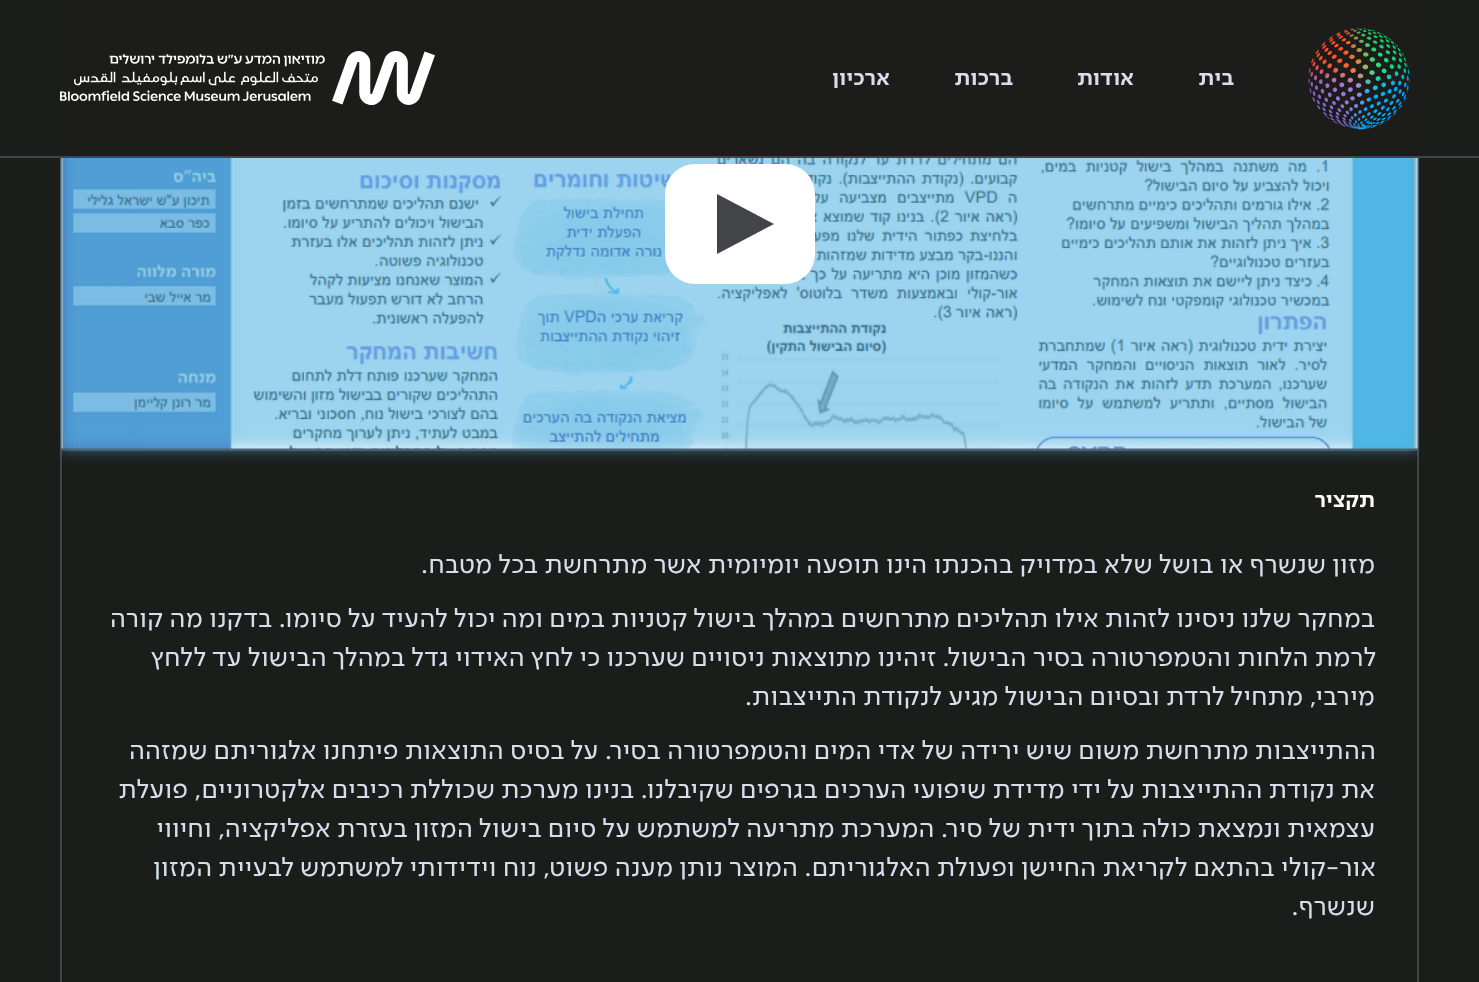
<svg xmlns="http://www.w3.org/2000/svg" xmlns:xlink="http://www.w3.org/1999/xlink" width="1479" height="982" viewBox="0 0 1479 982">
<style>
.cls-1{font:bold 22.5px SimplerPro;direction:rtl;fill:#d9ddeb}
.cls-2{font:bold 22.5px SimplerPro;direction:rtl;fill:#ffffff}
.cls-3{font:27px SimplerPro;direction:rtl;fill:#d9ddeb}
</style>
<defs>
<clipPath id="clip1"><rect x="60" y="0" width="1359" height="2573"/></clipPath>
</defs>
<rect width="100%" height="100%" fill="#1b1d1a"/>
<rect fill="none" stroke="#434448" stroke-width="2" x="61" y="450" width="1357" height="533"/>
<rect fill="none" stroke="#434448" stroke-width="2" x="61" y="-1" width="1357" height="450"/>
<image xlink:href="image2.png" x="61" y="158" width="1357" height="291"/>
<g clip-path="url(#clip1)">
<rect fill="#5ab7e5" fill-opacity="0.6" filter="blur(7.5px)" x="62" y="-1" width="1356" height="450"/>
</g>
<rect fill="#1c1d1a" x="60" y="0" width="1359" height="156"/>
<rect fill="#434448" x="0" y="156" width="1479" height="2"/>
<image xlink:href="image0.png" x="1308" y="28" width="102" height="102"/>
<image xlink:href="image1.png" x="60" y="51" width="375" height="54"/>
<rect fill="#ffffff" x="665" y="164" width="150" height="120" rx="30"/>
<path fill="#434448" d="M717 254V194L774 224Z"/>
<text class="cls-1" x="1234" y="85">בית</text>
<text class="cls-1" x="1134" y="85">אודות</text>
<text class="cls-1" x="1013" y="85">ברכות</text>
<text class="cls-1" x="890" y="85">ארכיון</text>
<text class="cls-2" x="1375" y="507">תקציר</text>
<text class="cls-3" x="1375" y="573">מזון שנשרף או בושל שלא במדויק בהכנתו הינו תופעה יומיומית אשר מתרחשת בכל מטבח.</text>
<text class="cls-3" x="1375" y="627">במחקר שלנו ניסינו לזהות אילו תהליכים מתרחשים במהלך בישול קטניות במים ומה יכול להעיד על סיומו. בדקנו מה קורה</text>
<text class="cls-3" x="1376" y="666">לרמת הלחות והטמפרטורה בסיר הבישול. זיהינו מתוצאות ניסויים שערכנו כי לחץ האידוי גדל במהלך הבישול עד ללחץ</text>
<text class="cls-3" x="1375" y="705">מירבי, מתחיל לרדת ובסיום הבישול מגיע לנקודת התייצבות.</text>
<text class="cls-3" x="1376" y="759">ההתייצבות מתרחשת משום שיש ירידה של אדי המים והטמפרטורה בסיר. על בסיס התוצאות פיתחנו אלגוריתם שמזהה</text>
<text class="cls-3"><tspan x="1375" y="798">את נקודת ההתייצבות על ידי מדידת שיפועי הערכים בגרפים שקיבלנו. בנינו מערכת שכוללת רכיבים אלקטרוניים, פועלת</tspan><tspan x="1375" y="837">עצמאית ונמצאת כולה בתוך ידית של סיר. המערכת מתריעה למשתמש על סיום בישול המזון בעזרת אפליקציה, וחיווי</tspan></text>
<text class="cls-3" x="1376" y="876">אור-קולי בהתאם לקריאת החיישן ופעולת האלגוריתם. המוצר נותן מענה פשוט, נוח וידידותי למשתמש לבעיית המזון</text>
<text class="cls-3" x="1375" y="915">שנשרף.</text>
</svg>
